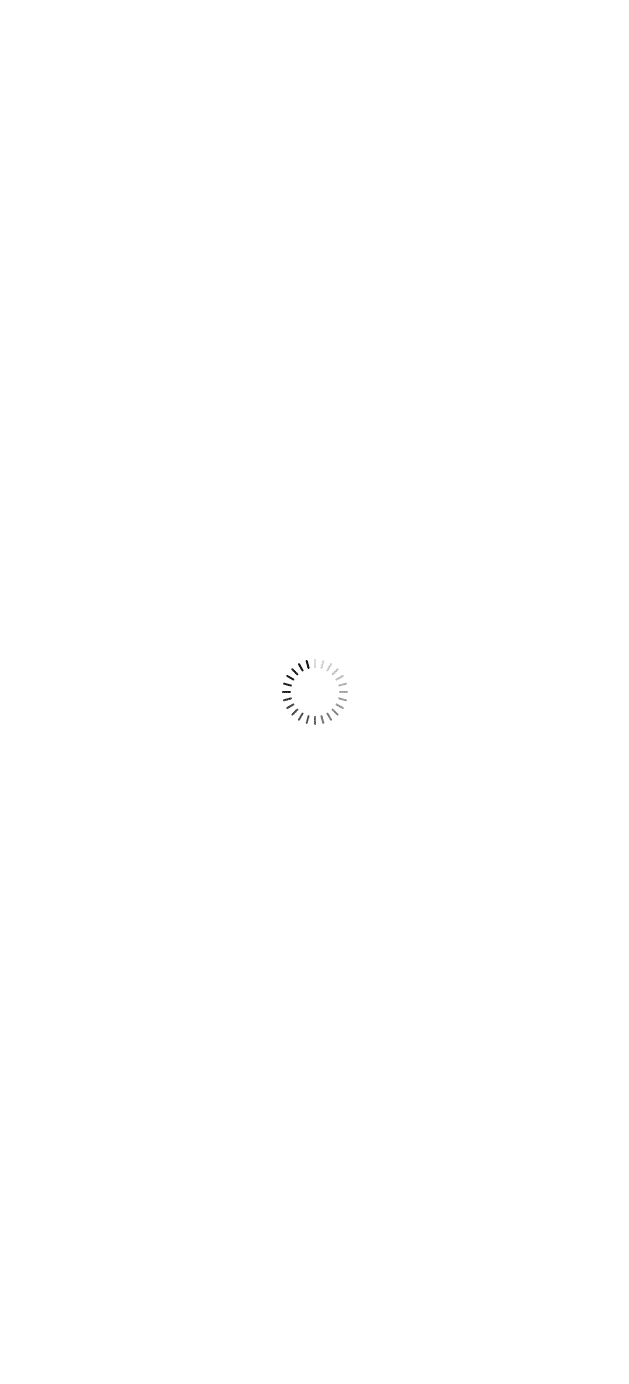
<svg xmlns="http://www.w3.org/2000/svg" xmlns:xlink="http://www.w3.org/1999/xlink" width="629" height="1384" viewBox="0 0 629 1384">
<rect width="100%" height="100%" fill="#ffffff"/>
<image xlink:href="image0.png" x="282" y="659" width="66" height="66"/>
</svg>
